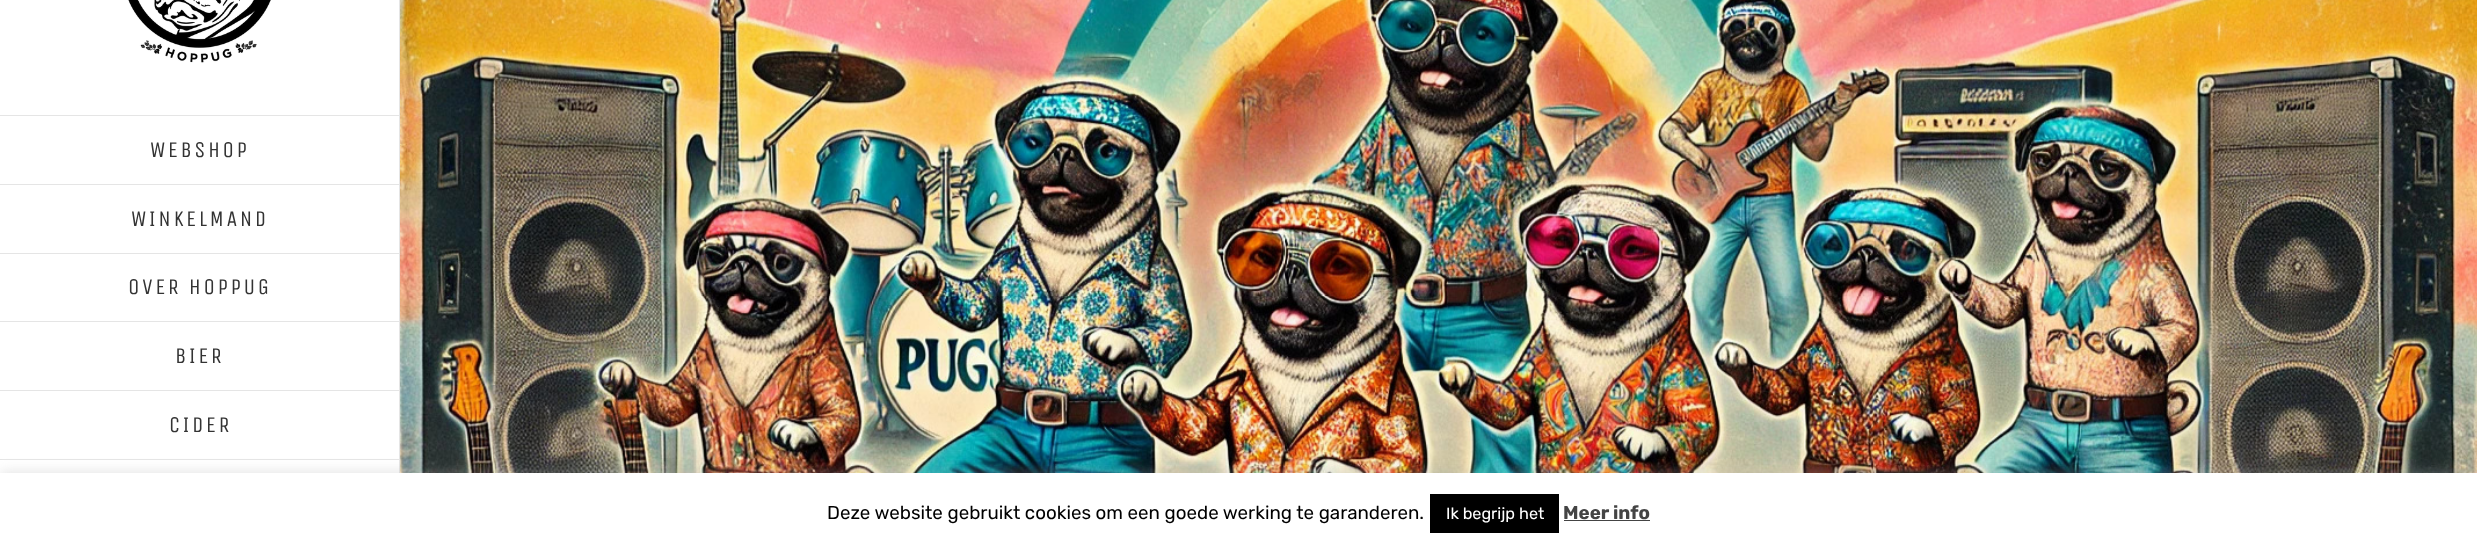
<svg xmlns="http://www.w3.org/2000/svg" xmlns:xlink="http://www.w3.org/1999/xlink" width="2477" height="547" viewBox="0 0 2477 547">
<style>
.cls-1{font:22.5px Unica One;letter-spacing:2.5px;fill:#333333}
.cls-2{font:18.75px Rubik;fill:#000000}
.cls-3{font:16.25px Rubik;fill:#ffffff}
.cls-4{font:bold 18.75px Rubik;fill:#444444}
</style>
<rect width="100%" height="100%" fill="#ffffff"/>
<image xlink:href="image0.png" x="128" y="0" width="143" height="63"/>
<rect fill="#e5e5e5" x="399" y="0" width="1" height="473"/>
<rect fill="#e5e5e5" x="0" y="115" width="400" height="1"/>
<rect fill="#e5e5e5" x="0" y="184" width="400" height="1"/>
<rect fill="#e5e5e5" x="0" y="253" width="400" height="1"/>
<rect fill="#e5e5e5" x="0" y="321" width="400" height="1"/>
<rect fill="#e5e5e5" x="0" y="390" width="400" height="1"/>
<rect fill="#e5e5e5" x="0" y="459" width="400" height="1"/>
<image xlink:href="image1.png" x="400" y="0" width="2077" height="473"/>
<rect fill="#acabab" fill-opacity="0.3" filter="blur(6px)" x="0" y="471" width="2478" height="75"/>
<rect fill="#ffffff" x="0" y="473" width="2477" height="74"/>
<rect fill="#000000" x="1430" y="494" width="129" height="39"/>
<rect fill="#444444" x="1564" y="520" width="86" height="1"/>
<text class="cls-1" x="150" y="157">WEBSHOP</text>
<text class="cls-1" x="131" y="226">WINKELMAND</text>
<text class="cls-1" x="128" y="294">OVER HOPPUG</text>
<text class="cls-1" x="175" y="363">BIER</text>
<text class="cls-1" x="169" y="432">CIDER</text>
<text class="cls-2" x="827" y="519">Deze website gebruikt cookies om een goede werking te garanderen.</text>
<text class="cls-3" x="1446" y="519">Ik begrijp het</text>
<text class="cls-4" x="1563" y="519">Meer info</text>
</svg>
